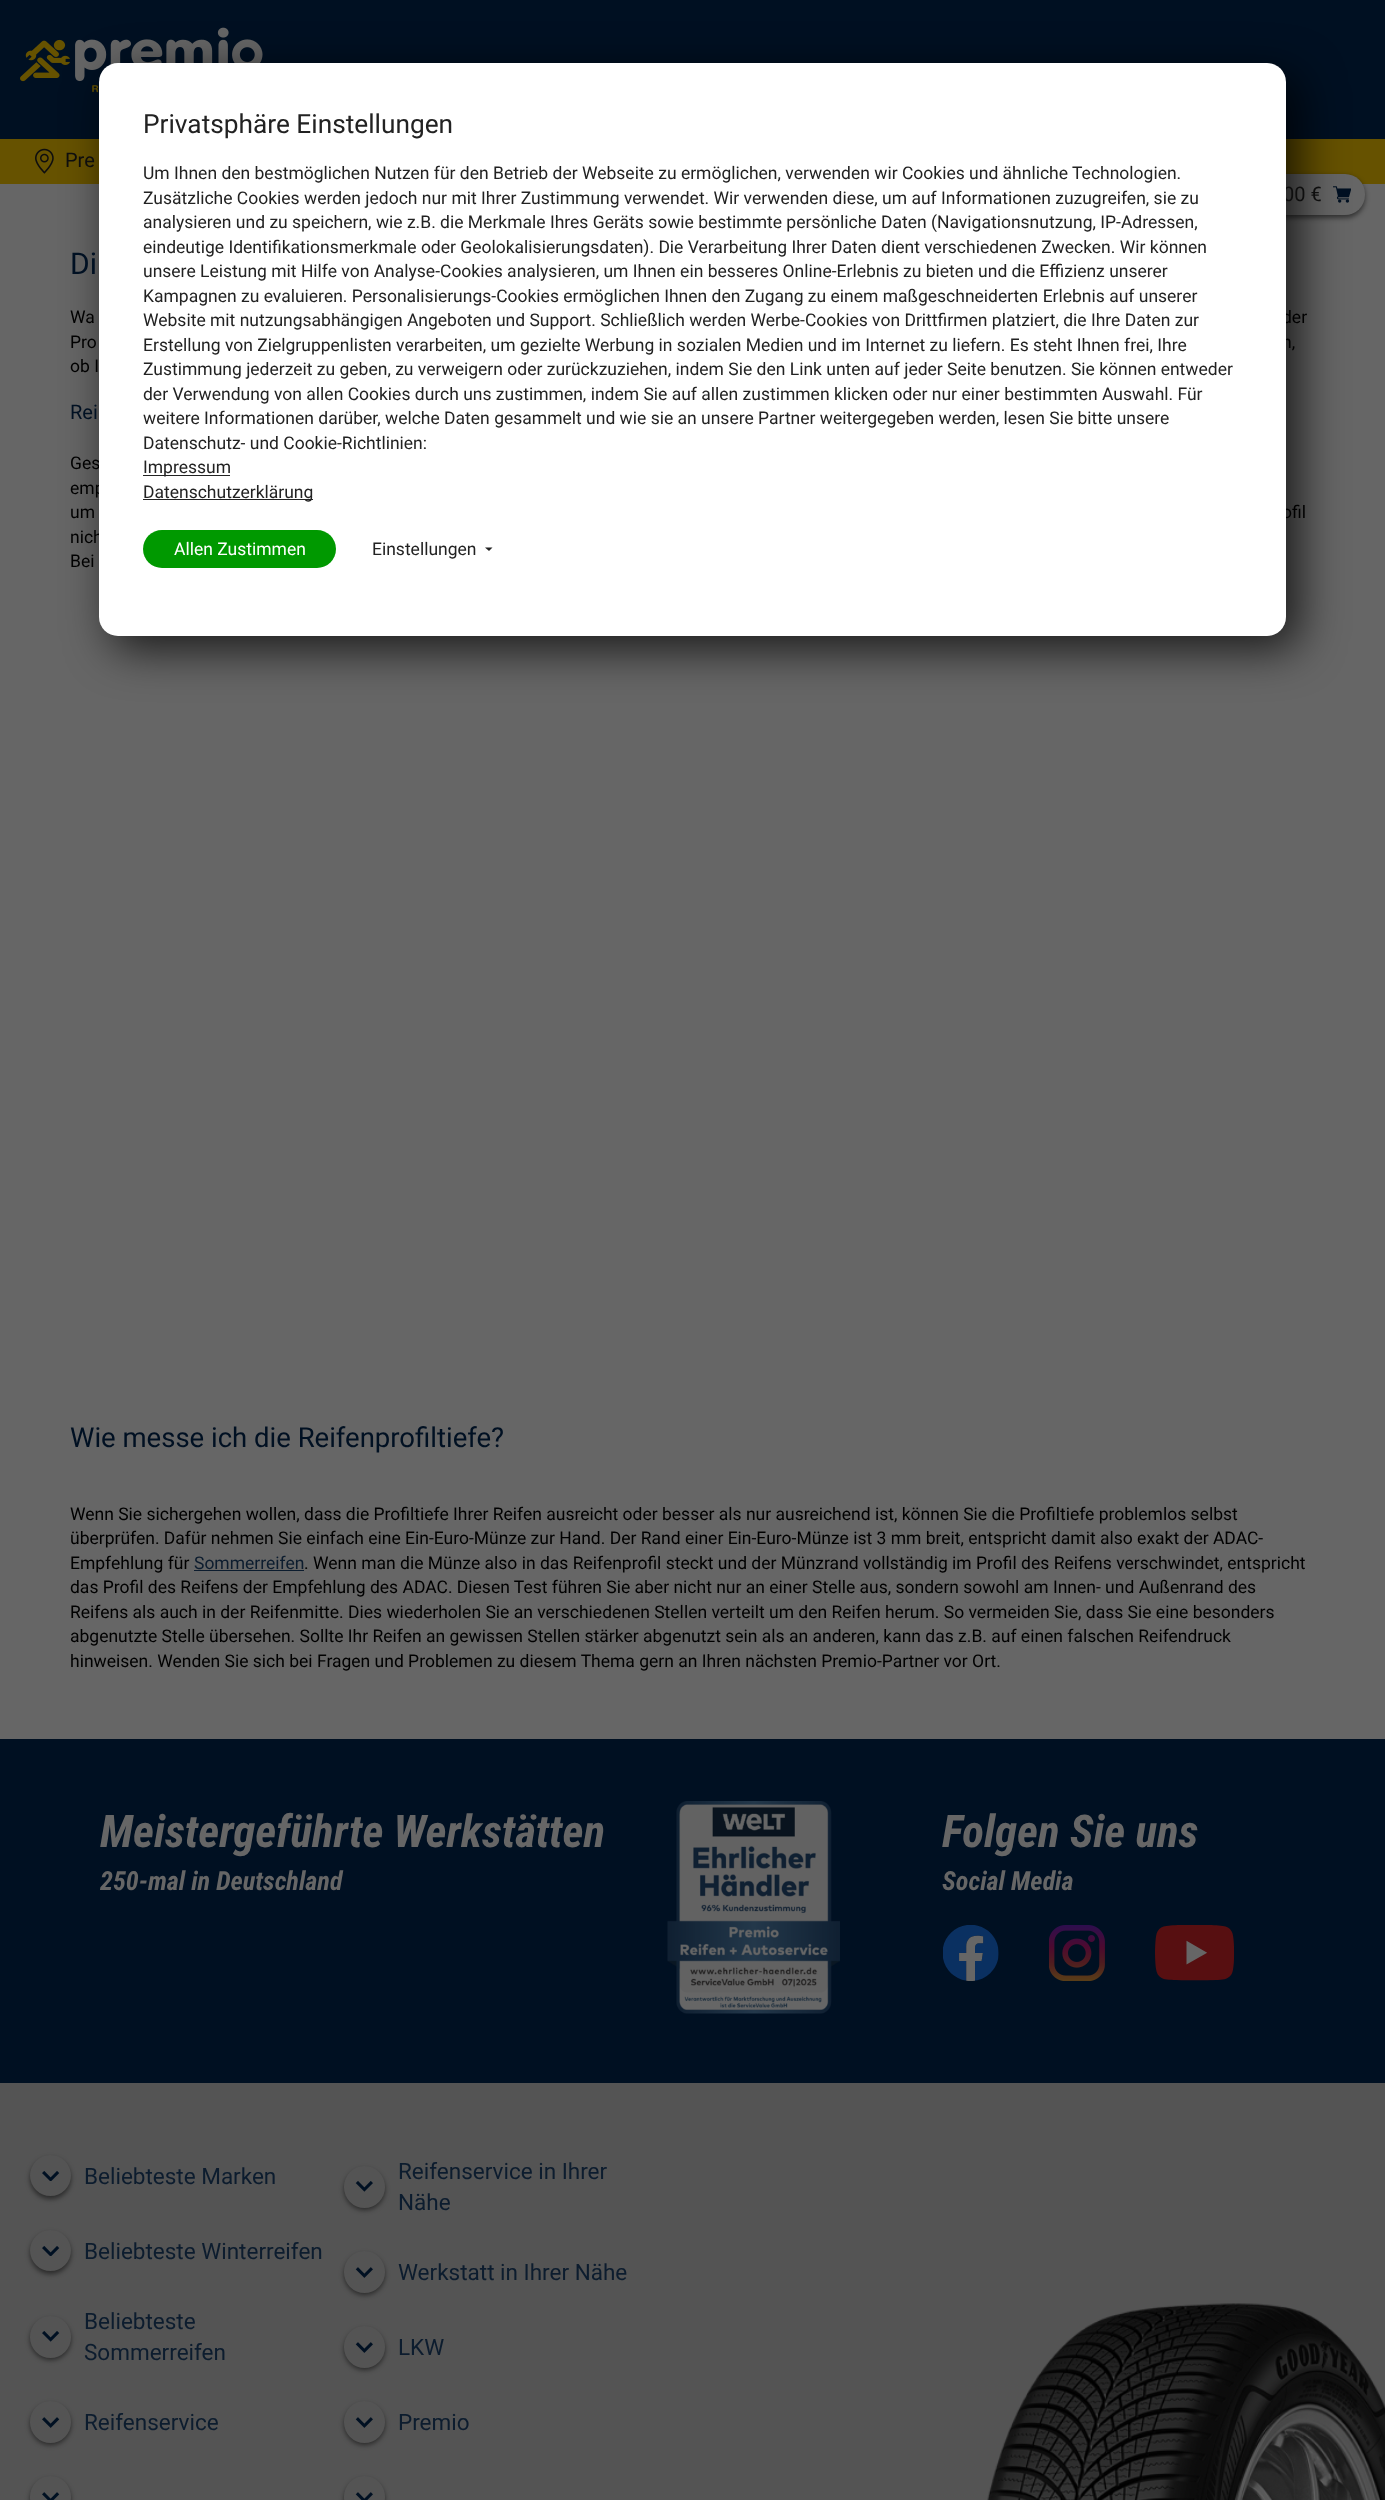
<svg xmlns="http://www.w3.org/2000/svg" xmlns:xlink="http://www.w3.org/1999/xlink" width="1385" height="2500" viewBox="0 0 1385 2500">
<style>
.cls-1{font:20px Roboto;fill:#0e0e0e}
.cls-2{font:30px Roboto;fill:#001022}
.cls-3{font:17.5px Roboto;fill:#000000}
.cls-4{font:20px Roboto;fill:#001022}
.cls-5{font:17.5px Roboto;fill:#222222}
.cls-6{font:17.5px Roboto;fill:#ffffff}
.cls-7{font:26.25px Roboto;fill:#222222}
.cls-8{font:27.5px Roboto;fill:#001022}
.cls-9{font:17.5px Roboto;fill:#0c1c2e}
.cls-10{font:italic bold 45px Roboto Condensed;fill:#666666}
.cls-11{font:italic bold 26.25px Roboto Condensed;fill:#666666}
.cls-12{font:22.5px Roboto;fill:#0c1c2e}
</style>
<rect width="100%" height="100%" fill="#666666"/>
<rect fill="#001022" x="0" y="0" width="1385" height="139"/>
<image xlink:href="image0.png" x="20" y="27" width="243" height="66"/>
<rect fill="#665200" x="0" y="139" width="1385" height="45"/>
<image xlink:href="image1.png" x="35" y="148" width="19" height="26"/>
<rect fill="#000000" fill-opacity="0.5" filter="blur(2.5px)" x="965" y="176" width="400" height="42" rx="20"/>
<rect fill="#666666" x="965" y="174" width="400" height="41" rx="20"/>
<image xlink:href="image2.png" x="1333" y="186" width="18" height="17"/>
<rect fill="#000000" fill-opacity="0.75" filter="blur(23px)" x="111" y="75" width="1188" height="574" rx="19"/>
<rect fill="#0c1c2e" x="194" y="1570" width="110" height="1"/>
<rect fill="#001022" x="0" y="1739" width="1385" height="344"/>
<image xlink:href="image3.png" x="667" y="1801" width="173" height="213"/>
<image xlink:href="image4.png" x="943" y="1925" width="56" height="56"/>
<image xlink:href="image5.png" x="1049" y="1925" width="56" height="56"/>
<image xlink:href="image6.png" x="1155" y="1925" width="80" height="56"/>
<rect fill="#545454" x="0" y="2083" width="1385" height="417"/>
<rect fill="#000000" fill-opacity="0.5" filter="blur(2.5px)" x="30" y="2158" width="41" height="41" rx="20.5"/>
<circle fill="#545454" cx="50.5" cy="2175.5" r="20.5"/>
<image xlink:href="image7.png" x="42" y="2171" width="18" height="10"/>
<rect fill="#000000" fill-opacity="0.5" filter="blur(2.5px)" x="30" y="2233" width="41" height="41" rx="20.5"/>
<circle fill="#545454" cx="50.5" cy="2250.5" r="20.5"/>
<image xlink:href="image7.png" x="42" y="2246" width="18" height="10"/>
<rect fill="#000000" fill-opacity="0.5" filter="blur(2.5px)" x="30" y="2319" width="41" height="41" rx="20.5"/>
<rect fill="#545454" x="30" y="2316" width="41" height="42" rx="20.5"/>
<image xlink:href="image8.png" x="42" y="2331" width="18" height="11"/>
<rect fill="#000000" fill-opacity="0.5" filter="blur(2.5px)" x="30" y="2404" width="41" height="41" rx="20.5"/>
<rect fill="#545454" x="30" y="2401" width="41" height="42" rx="20.5"/>
<image xlink:href="image9.png" x="42" y="2417" width="18" height="11"/>
<rect fill="#000000" fill-opacity="0.5" filter="blur(2.5px)" x="30" y="2479" width="41" height="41" rx="20.5"/>
<rect fill="#545454" x="30" y="2476" width="41" height="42" rx="20.5"/>
<image xlink:href="image10.png" x="42" y="2492" width="18" height="8"/>
<rect fill="#000000" fill-opacity="0.5" filter="blur(2.5px)" x="344" y="2169" width="41" height="41" rx="20.5"/>
<rect fill="#545454" x="344" y="2166" width="41" height="42" rx="20.5"/>
<image xlink:href="image11.png" x="355" y="2181" width="18" height="11"/>
<rect fill="#000000" fill-opacity="0.5" filter="blur(2.5px)" x="344" y="2254" width="41" height="41" rx="20.5"/>
<rect fill="#545454" x="344" y="2251" width="41" height="42" rx="20.5"/>
<image xlink:href="image12.png" x="355" y="2267" width="18" height="11"/>
<rect fill="#000000" fill-opacity="0.5" filter="blur(2.5px)" x="344" y="2329" width="41" height="41" rx="20.5"/>
<rect fill="#545454" x="344" y="2326" width="41" height="42" rx="20.5"/>
<image xlink:href="image12.png" x="355" y="2342" width="18" height="11"/>
<rect fill="#000000" fill-opacity="0.5" filter="blur(2.5px)" x="344" y="2404" width="41" height="41" rx="20.5"/>
<rect fill="#545454" x="344" y="2401" width="41" height="42" rx="20.5"/>
<image xlink:href="image12.png" x="355" y="2417" width="18" height="11"/>
<rect fill="#000000" fill-opacity="0.5" filter="blur(2.5px)" x="344" y="2479" width="41" height="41" rx="20.5"/>
<rect fill="#545454" x="344" y="2476" width="41" height="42" rx="20.5"/>
<image xlink:href="image13.png" x="355" y="2492" width="18" height="8"/>
<image xlink:href="image14.png" x="987" y="2303" width="398" height="197"/>
<text class="cls-1" x="65" y="167">Pre</text>
<text class="cls-1" x="1283" y="201">00 €</text>
<text class="cls-2" x="70" y="274">Di</text>
<text class="cls-3" x="70" y="323">Wa</text>
<text class="cls-3" x="1282" y="323">der</text>
<text class="cls-3" x="70" y="348">Pro</text>
<text class="cls-3" x="1282" y="348">n,</text>
<text class="cls-3" x="70" y="372">ob I</text>
<text class="cls-4" x="70" y="419">Rei</text>
<text class="cls-3"><tspan x="70" y="469">Ges</tspan><tspan x="70" y="494">emp</tspan><tspan x="70" y="518">um</tspan></text>
<text class="cls-3" x="1282" y="518">ofil</text>
<text class="cls-3" x="70" y="543">nich</text>
<rect fill="#ffffff" x="99" y="63" width="1187" height="573" rx="19"/>
<path fill="#222222" d="M485 547.5H492.5L489 551Z"/>
<text class="cls-5" x="372" y="555">Einstellungen</text>
<rect fill="#009900" x="143" y="530" width="193" height="38" rx="19"/>
<text class="cls-6" x="174" y="555">Allen Zustimmen</text>
<rect fill="#222222" x="143" y="499" width="170" height="1"/>
<text class="cls-5" x="143" y="498">Datenschutzerklärung</text>
<rect fill="#222222" x="143" y="475" width="87" height="1"/>
<text class="cls-5" x="143" y="473">Impressum</text>
<text class="cls-5" x="143" y="449">Datenschutz- und Cookie-Richtlinien:</text>
<text class="cls-5" x="143" y="424">weitere Informationen darüber, welche Daten gesammelt und wie sie an unsere Partner weitergegeben werden, lesen Sie bitte unsere</text>
<text class="cls-5" x="143" y="400">der Verwendung von allen Cookies durch uns zustimmen, indem Sie auf allen zustimmen klicken oder nur einer bestimmten Auswahl. Für</text>
<text class="cls-5" x="143" y="375">Zustimmung jederzeit zu geben, zu verweigern oder zurückzuziehen, indem Sie den Link unten auf jeder Seite benutzen. Sie können entweder</text>
<text class="cls-5" x="143" y="351">Erstellung von Zielgruppenlisten verarbeiten, um gezielte Werbung in sozialen Medien und im Internet zu liefern. Es steht Ihnen frei, Ihre</text>
<text class="cls-5" x="143" y="326">Website mit nutzungsabhängigen Angeboten und Support. Schließlich werden Werbe-Cookies von Drittfirmen platziert, die Ihre Daten zur</text>
<text class="cls-5" x="143" y="302">Kampagnen zu evaluieren. Personalisierungs-Cookies ermöglichen Ihnen den Zugang zu einem maßgeschneiderten Erlebnis auf unserer</text>
<text class="cls-5" x="143" y="277">unsere Leistung mit Hilfe von Analyse-Cookies analysieren, um Ihnen ein besseres Online-Erlebnis zu bieten und die Effizienz unserer</text>
<text class="cls-5" x="143" y="253">eindeutige Identifikationsmerkmale oder Geolokalisierungsdaten). Die Verarbeitung Ihrer Daten dient verschiedenen Zwecken. Wir können</text>
<text class="cls-5" x="143" y="228">analysieren und zu speichern, wie z.B. die Merkmale Ihres Geräts sowie bestimmte persönliche Daten (Navigationsnutzung, IP-Adressen,</text>
<text class="cls-5" x="143" y="204">Zusätzliche Cookies werden jedoch nur mit Ihrer Zustimmung verwendet. Wir verwenden diese, um auf Informationen zuzugreifen, sie zu</text>
<text class="cls-5" x="143" y="179">Um Ihnen den bestmöglichen Nutzen für den Betrieb der Webseite zu ermöglichen, verwenden wir Cookies und ähnliche Technologien.</text>
<text class="cls-7" x="143" y="133">Privatsphäre Einstellungen</text>
<text class="cls-3" x="70" y="567">Bei</text>
<text class="cls-8" x="70" y="1447">Wie messe ich die Reifenprofiltiefe?</text>
<text class="cls-3"><tspan x="70" y="1520">Wenn Sie sichergehen wollen, dass die Profiltiefe Ihrer Reifen ausreicht oder besser als nur ausreichend ist, können Sie die Profiltiefe problemlos selbst</tspan><tspan x="70" y="1544">überprüfen. Dafür nehmen Sie einfach eine Ein-Euro-Münze zur Hand. Der Rand einer Ein-Euro-Münze ist 3 mm breit, entspricht damit also exakt der ADAC-</tspan><tspan x="70" y="1569">Empfehlung für</tspan></text>
<text class="cls-9" x="194" y="1569">Sommerreifen</text>
<text class="cls-3" x="304" y="1569">. Wenn man die Münze also in das Reifenprofil steckt und der Münzrand vollständig im Profil des Reifens verschwindet, entspricht</text>
<text class="cls-3"><tspan x="70" y="1593">das Profil des Reifens der Empfehlung des ADAC. Diesen Test führen Sie aber nicht nur an einer Stelle aus, sondern sowohl am Innen- und Außenrand des</tspan><tspan x="70" y="1618">Reifens als auch in der Reifenmitte. Dies wiederholen Sie an verschiedenen Stellen verteilt um den Reifen herum. So vermeiden Sie, dass Sie eine besonders</tspan><tspan x="70" y="1642">abgenutzte Stelle übersehen. Sollte Ihr Reifen an gewissen Stellen stärker abgenutzt sein als an anderen, kann das z.B. auf einen falschen Reifendruck</tspan><tspan x="70" y="1667">hinweisen. Wenden Sie sich bei Fragen und Problemen zu diesem Thema gern an Ihren nächsten Premio-Partner vor Ort.</tspan></text>
<text class="cls-10" x="100" y="1847">Meistergeführte Werkstätten</text>
<text class="cls-11" x="100" y="1890">250-mal in Deutschland</text>
<text class="cls-10" x="942" y="1847">Folgen Sie uns</text>
<text class="cls-11" x="942" y="1890">Social Media</text>
<text class="cls-12" x="84" y="2184">Beliebteste Marken</text>
<text class="cls-12" x="84" y="2259">Beliebteste Winterreifen</text>
<text class="cls-12"><tspan x="84" y="2329">Beliebteste</tspan><tspan x="84" y="2360">Sommerreifen</tspan></text>
<text class="cls-12" x="84" y="2430">Reifenservice</text>
<text class="cls-12"><tspan x="398" y="2179">Reifenservice in Ihrer</tspan><tspan x="398" y="2210">Nähe</tspan></text>
<text class="cls-12" x="398" y="2280">Werkstatt in Ihrer Nähe</text>
<text class="cls-12" x="398" y="2355">LKW</text>
<text class="cls-12" x="398" y="2430">Premio</text>
</svg>
